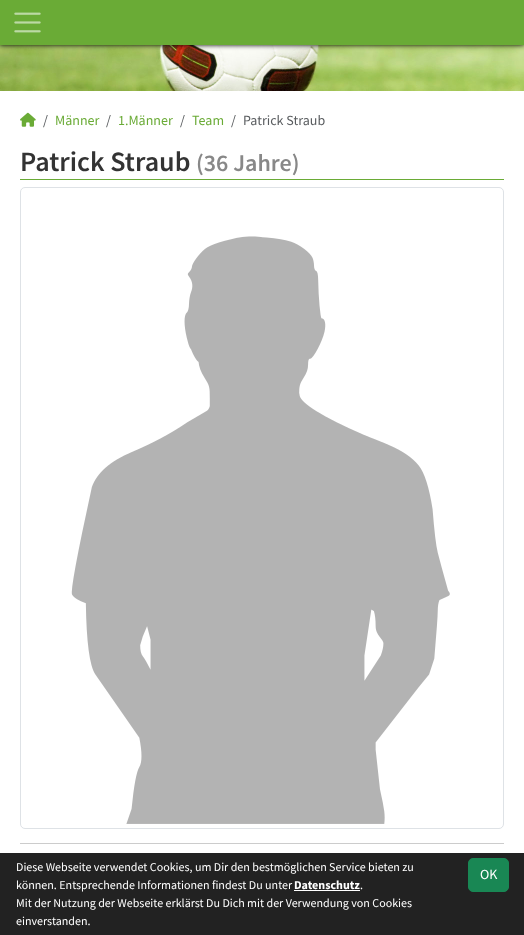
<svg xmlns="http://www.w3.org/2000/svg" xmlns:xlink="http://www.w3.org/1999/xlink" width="524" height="935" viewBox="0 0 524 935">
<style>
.cls-1{font:14px Source Sans Pro;fill:#595c5f}
.cls-2{font:14px Source Sans Pro;fill:#6aab36}
.cls-3{font:600 28px Source Sans Pro;fill:#333333}
.cls-4{font:600 24px Source Sans Pro;fill:#888888}
.cls-5{font:12px Source Sans Pro;fill:#ffffff}
.cls-6{font:bold 12px Source Sans Pro;fill:#ffffff}
.cls-7{font:14px Source Sans Pro;fill:#ffffff}
</style>
<rect width="100%" height="100%" fill="#ffffff"/>
<image xlink:href="image1.png" x="0" y="45" width="524" height="46"/>
<rect fill="#000000" filter="blur(2.5px)" x="0" y="0" width="524" height="45"/>
<rect fill="#6aab36" x="0" y="0" width="524" height="45"/>
<image xlink:href="image0.png" x="14" y="12" width="27" height="21"/>
<image xlink:href="image2.png" x="20" y="112" width="16" height="15"/>
<rect fill="#6aab36" x="20" y="179" width="484" height="1"/>
<rect fill="none" stroke="#dee2e6" x="20.5" y="187.5" width="483" height="641" rx="4.5"/>
<image xlink:href="image3.png" x="71" y="236" width="379" height="588"/>
<rect fill="#cccccc" x="20" y="843" width="484" height="1"/>
<rect fill="#222222" x="0" y="853" width="524" height="82"/>
<rect fill="#ffffff" x="294" y="890" width="66" height="1"/>
<rect fill="#198754" stroke="#198754" x="468.5" y="858.5" width="40" height="33" rx="4.5"/>
<text class="cls-1" x="43" y="125">/</text>
<text class="cls-2" x="55" y="125">Männer</text>
<text class="cls-1" x="106" y="125">/</text>
<text class="cls-2" x="118" y="125">1.Männer</text>
<text class="cls-1" x="180" y="125">/</text>
<text class="cls-2" x="192" y="125">Team</text>
<text class="cls-1" x="231" y="125">/</text>
<text class="cls-1" x="243" y="125">Patrick Straub</text>
<text class="cls-3" x="20" y="171">Patrick Straub</text>
<text class="cls-4" x="196" y="171">(36 Jahre)</text>
<text class="cls-5"><tspan x="16" y="871">Diese Webseite verwendet Cookies, um Dir den bestmöglichen Service bieten zu</tspan><tspan x="16" y="889">können. Entsprechende Informationen findest Du unter</tspan></text>
<text class="cls-6" x="294" y="889">Datenschutz</text>
<text class="cls-5" x="360" y="889">.</text>
<text class="cls-5"><tspan x="16" y="907">Mit der Nutzung der Webseite erklärst Du Dich mit der Verwendung von Cookies</tspan><tspan x="16" y="925">einverstanden.</tspan></text>
<text class="cls-7" x="480" y="879">OK</text>
</svg>
